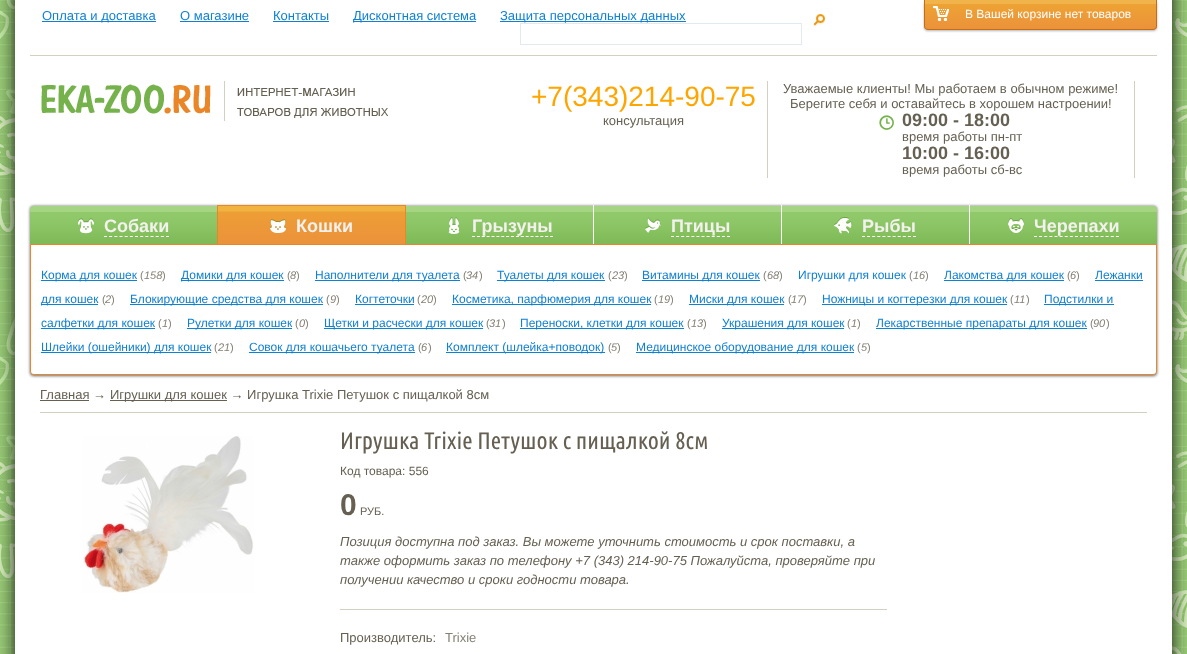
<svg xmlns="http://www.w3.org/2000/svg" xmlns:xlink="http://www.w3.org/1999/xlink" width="1187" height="654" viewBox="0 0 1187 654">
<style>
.cls-1{font:13px Liberation Sans;fill:#1080d1}
.cls-2{font:12px Liberation Sans;fill:#ffffff}
.cls-3{font:28px Liberation Sans;fill:#ffa500}
.cls-4{font:13px Liberation Sans;fill:#656052}
.cls-5{font:bold 18px Liberation Sans;fill:#656052}
.cls-6{font:bold 18px Liberation Sans;fill:#f2f1ee}
.cls-7{font:12px Liberation Sans;fill:#1080d1}
.cls-8{font:11px Liberation Sans;fill:#848075}
.cls-9{font:italic 11px Liberation Sans;fill:#848075}
.cls-10{font:24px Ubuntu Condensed;fill:#656052}
.cls-11{font:12px Liberation Sans;fill:#656052}
.cls-12{font:bold 30px Liberation Sans;fill:#656052}
.cls-13{font:11px Liberation Sans;fill:#656052}
.cls-14{font:italic 13px Liberation Sans;fill:#656052}
.cls-15{font:13px Liberation Sans;fill:#848075}
</style>
<rect width="100%" height="100%" fill="#ffffff"/>
<image xlink:href="image0.png" x="0" y="0" width="1187" height="654"/>
<image xlink:href="image1.png" x="0" y="0" width="15" height="654"/>
<rect fill="#ffffff" x="15" y="0" width="1157" height="654"/>
<rect fill="#d3d0c2" x="30" y="55" width="1127" height="1"/>
<rect fill="#1080d1" x="42" y="21" width="114" height="1"/>
<rect fill="#1080d1" x="180" y="21" width="69" height="1"/>
<rect fill="#1080d1" x="273" y="21" width="56" height="1"/>
<rect fill="#1080d1" x="353" y="21" width="123" height="1"/>
<rect fill="#1080d1" x="500" y="21" width="186" height="1"/>
<rect fill="#b3b3b3" filter="blur(1px)" x="924" y="1" width="233" height="30" rx="4"/>
<image xlink:href="image2.png" x="924" y="0" width="233" height="29"/>
<path fill="#c66c14" fill-rule="evenodd" d="M924 0H1157V26C1157 28 1155 30 1153 30H928C926 30 924 28 924 26ZM925 0H1156V26C1156 28 1155 29 1153 29H928C926 29 925 28 925 26Z"/>
<image xlink:href="image3.png" x="933" y="6" width="16" height="15"/>
<image xlink:href="image4.png" x="813" y="14" width="12" height="12"/>
<rect fill="none" stroke="#e2e9ef" x="520.5" y="23.5" width="281" height="21"/>
<image xlink:href="image5.png" x="41" y="81" width="347" height="40"/>
<rect fill="#d3d0c2" x="767" y="81" width="1" height="97"/>
<image xlink:href="image6.png" x="879" y="115" width="15" height="15"/>
<rect fill="#d3d0c2" x="1134" y="81" width="1" height="97"/>
<rect fill="#666666" filter="blur(1.5px)" x="30" y="206" width="1127" height="170" rx="4"/>
<image xlink:href="image7.png" x="30" y="206" width="187" height="38"/>
<image xlink:href="image8.png" x="78" y="218" width="16" height="16"/>
<path fill="none" stroke="#ffffff" stroke-dasharray="3 2.17" d="M104 236.5H169"/>
<image xlink:href="image9.png" x="218" y="206" width="187" height="38"/>
<rect fill="#e98628" x="217" y="205" width="189" height="1"/>
<rect fill="#e98628" x="405" y="205" width="1" height="42"/>
<rect fill="#e98628" x="217" y="205" width="1" height="42"/>
<image xlink:href="image10.png" x="270" y="219" width="16" height="14"/>
<image xlink:href="image11.png" x="406" y="206" width="187" height="38"/>
<image xlink:href="image12.png" x="448" y="217" width="12" height="17"/>
<path fill="none" stroke="#ffffff" stroke-dasharray="3 1.88" d="M472 236.5H553"/>
<image xlink:href="image11.png" x="594" y="206" width="187" height="38"/>
<rect fill="#ffffff" x="593" y="205" width="1" height="42"/>
<image xlink:href="image13.png" x="645" y="217" width="16" height="16"/>
<path fill="none" stroke="#ffffff" stroke-dasharray="3 2.09" d="M671 236.5H730"/>
<image xlink:href="image11.png" x="782" y="206" width="187" height="38"/>
<rect fill="#ffffff" x="781" y="205" width="1" height="42"/>
<image xlink:href="image14.png" x="834" y="217" width="18" height="17"/>
<path fill="none" stroke="#ffffff" stroke-dasharray="3 2.1" d="M862 236.5H916"/>
<image xlink:href="image15.png" x="970" y="206" width="187" height="38"/>
<rect fill="#ffffff" x="969" y="205" width="1" height="42"/>
<image xlink:href="image16.png" x="1008" y="218" width="16" height="15"/>
<path fill="none" stroke="#ffffff" stroke-dasharray="3 2.12" d="M1034 236.5H1119"/>
<path fill="#ffffff" stroke="#e98628" d="M30.5 244.5H1156.5V371C1156.5 373 1155 374.5 1153 374.5H34C32 374.5 30.5 373 30.5 371Z"/>
<rect fill="#1080d1" x="41" y="280" width="96" height="1"/>
<rect fill="#1080d1" x="181" y="280" width="103" height="1"/>
<rect fill="#1080d1" x="315" y="280" width="145" height="1"/>
<rect fill="#1080d1" x="497" y="280" width="108" height="1"/>
<rect fill="#1080d1" x="642" y="280" width="118" height="1"/>
<rect fill="#1080d1" x="944" y="280" width="120" height="1"/>
<rect fill="#1080d1" x="1095" y="280" width="48" height="1"/>
<rect fill="#1080d1" x="41" y="304" width="57" height="1"/>
<rect fill="#1080d1" x="130" y="304" width="193" height="1"/>
<rect fill="#1080d1" x="355" y="304" width="59" height="1"/>
<rect fill="#1080d1" x="452" y="304" width="199" height="1"/>
<rect fill="#1080d1" x="689" y="304" width="95" height="1"/>
<rect fill="#1080d1" x="822" y="304" width="185" height="1"/>
<rect fill="#1080d1" x="1044" y="304" width="70" height="1"/>
<rect fill="#1080d1" x="41" y="328" width="114" height="1"/>
<rect fill="#1080d1" x="187" y="328" width="105" height="1"/>
<rect fill="#1080d1" x="324" y="328" width="159" height="1"/>
<rect fill="#1080d1" x="520" y="328" width="164" height="1"/>
<rect fill="#1080d1" x="722" y="328" width="122" height="1"/>
<rect fill="#1080d1" x="876" y="328" width="211" height="1"/>
<rect fill="#1080d1" x="41" y="352" width="170" height="1"/>
<rect fill="#1080d1" x="249" y="352" width="166" height="1"/>
<rect fill="#1080d1" x="446" y="352" width="159" height="1"/>
<rect fill="#1080d1" x="636" y="352" width="218" height="1"/>
<rect fill="#d3d0c2" x="40" y="412" width="1107" height="1"/>
<rect fill="#656052" x="40" y="400" width="49" height="1"/>
<rect fill="#656052" x="110" y="400" width="117" height="1"/>
<image xlink:href="image17.png" x="82" y="436" width="172" height="157"/>
<rect fill="#d3d0c2" x="340" y="609" width="547" height="1"/>
<image xlink:href="image18.png" x="1172" y="0" width="15" height="654"/>
<text class="cls-1" x="42" y="20">Оплата и доставка</text>
<text class="cls-1" x="180" y="20">О магазине</text>
<text class="cls-1" x="273" y="20">Контакты</text>
<text class="cls-1" x="353" y="20">Дисконтная система</text>
<text class="cls-1" x="500" y="20">Защита персональных данных</text>
<text class="cls-2" x="965" y="18">В Вашей корзине нет товаров</text>
<text class="cls-3" x="531" y="106">+7(343)214-90-75</text>
<text class="cls-4" x="603" y="125">консультация</text>
<text class="cls-4" x="783" y="93">Уважаемые клиенты! Мы работаем в обычном режиме!</text>
<text class="cls-4" x="790" y="108">Берегите себя и оставайтесь в хорошем настроении!</text>
<text class="cls-5" x="902" y="126">09:00 - 18:00</text>
<text class="cls-4" x="902" y="141">время работы пн-пт</text>
<text class="cls-5" x="902" y="159">10:00 - 16:00</text>
<text class="cls-4" x="902" y="174">время работы сб-вс</text>
<text class="cls-6" x="104" y="232">Собаки</text>
<text class="cls-6" x="296" y="232">Кошки</text>
<text class="cls-6" x="472" y="232">Грызуны</text>
<text class="cls-6" x="671" y="232">Птицы</text>
<text class="cls-6" x="862" y="232">Рыбы</text>
<text class="cls-6" x="1034" y="232">Черепахи</text>
<text class="cls-7" x="41" y="279">Корма для кошек</text>
<text class="cls-8" x="140" y="279">(</text>
<text class="cls-9" x="144" y="279">158</text>
<text class="cls-8" x="162" y="279">)</text>
<text class="cls-7" x="181" y="279">Домики для кошек</text>
<text class="cls-8" x="287" y="279">(</text>
<text class="cls-9" x="290" y="279">8</text>
<text class="cls-8" x="296" y="279">)</text>
<text class="cls-7" x="315" y="279">Наполнители для туалета</text>
<text class="cls-8" x="463" y="279">(</text>
<text class="cls-9" x="466" y="279">34</text>
<text class="cls-8" x="479" y="279">)</text>
<text class="cls-7" x="497" y="279">Туалеты для кошек</text>
<text class="cls-8" x="608" y="279">(</text>
<text class="cls-9" x="612" y="279">23</text>
<text class="cls-8" x="624" y="279">)</text>
<text class="cls-7" x="642" y="279">Витамины для кошек</text>
<text class="cls-8" x="763" y="279">(</text>
<text class="cls-9" x="767" y="279">68</text>
<text class="cls-8" x="779" y="279">)</text>
<text class="cls-7" x="798" y="279">Игрушки для кошек</text>
<text class="cls-8" x="909" y="279">(</text>
<text class="cls-9" x="913" y="279">16</text>
<text class="cls-8" x="925" y="279">)</text>
<text class="cls-7" x="944" y="279">Лакомства для кошек</text>
<text class="cls-8" x="1067" y="279">(</text>
<text class="cls-9" x="1070" y="279">6</text>
<text class="cls-8" x="1076" y="279">)</text>
<text class="cls-7" x="1095" y="279">Лежанки</text>
<text class="cls-7" x="41" y="303">для кошек</text>
<text class="cls-8" x="102" y="303">(</text>
<text class="cls-9" x="105" y="303">2</text>
<text class="cls-8" x="111" y="303">)</text>
<text class="cls-7" x="130" y="303">Блокирующие средства для кошек</text>
<text class="cls-8" x="326" y="303">(</text>
<text class="cls-9" x="330" y="303">9</text>
<text class="cls-8" x="336" y="303">)</text>
<text class="cls-7" x="355" y="303">Когтеточки</text>
<text class="cls-8" x="417" y="303">(</text>
<text class="cls-9" x="421" y="303">20</text>
<text class="cls-8" x="433" y="303">)</text>
<text class="cls-7" x="452" y="303">Косметика, парфюмерия для кошек</text>
<text class="cls-8" x="654" y="303">(</text>
<text class="cls-9" x="658" y="303">19</text>
<text class="cls-8" x="670" y="303">)</text>
<text class="cls-7" x="689" y="303">Миски для кошек</text>
<text class="cls-8" x="788" y="303">(</text>
<text class="cls-9" x="791" y="303">17</text>
<text class="cls-8" x="803" y="303">)</text>
<text class="cls-7" x="822" y="303">Ножницы и когтерезки для кошек</text>
<text class="cls-8" x="1010" y="303">(</text>
<text class="cls-9" x="1014" y="303">11</text>
<text class="cls-8" x="1026" y="303">)</text>
<text class="cls-7" x="1044" y="303">Подстилки и</text>
<text class="cls-7" x="41" y="327">салфетки для кошек</text>
<text class="cls-8" x="158" y="327">(</text>
<text class="cls-9" x="162" y="327">1</text>
<text class="cls-8" x="168" y="327">)</text>
<text class="cls-7" x="187" y="327">Рулетки для кошек</text>
<text class="cls-8" x="295" y="327">(</text>
<text class="cls-9" x="299" y="327">0</text>
<text class="cls-8" x="305" y="327">)</text>
<text class="cls-7" x="324" y="327">Щетки и расчески для кошек</text>
<text class="cls-8" x="486" y="327">(</text>
<text class="cls-9" x="489" y="327">31</text>
<text class="cls-8" x="502" y="327">)</text>
<text class="cls-7" x="520" y="327">Переноски, клетки для кошек</text>
<text class="cls-8" x="687" y="327">(</text>
<text class="cls-9" x="691" y="327">13</text>
<text class="cls-8" x="703" y="327">)</text>
<text class="cls-7" x="722" y="327">Украшения для кошек</text>
<text class="cls-8" x="847" y="327">(</text>
<text class="cls-9" x="851" y="327">1</text>
<text class="cls-8" x="857" y="327">)</text>
<text class="cls-7" x="876" y="327">Лекарственные препараты для кошек</text>
<text class="cls-8" x="1090" y="327">(</text>
<text class="cls-9" x="1093" y="327">90</text>
<text class="cls-8" x="1106" y="327">)</text>
<text class="cls-7" x="41" y="351">Шлейки (ошейники) для кошек</text>
<text class="cls-8" x="214" y="351">(</text>
<text class="cls-9" x="218" y="351">21</text>
<text class="cls-8" x="230" y="351">)</text>
<text class="cls-7" x="249" y="351">Совок для кошачьего туалета</text>
<text class="cls-8" x="418" y="351">(</text>
<text class="cls-9" x="421" y="351">6</text>
<text class="cls-8" x="428" y="351">)</text>
<text class="cls-7" x="446" y="351">Комплект (шлейка+поводок)</text>
<text class="cls-8" x="608" y="351">(</text>
<text class="cls-9" x="611" y="351">5</text>
<text class="cls-8" x="617" y="351">)</text>
<text class="cls-7" x="636" y="351">Медицинское оборудование для кошек</text>
<text class="cls-8" x="857" y="351">(</text>
<text class="cls-9" x="861" y="351">5</text>
<text class="cls-8" x="867" y="351">)</text>
<text class="cls-4" x="40" y="399">Главная →</text>
<text class="cls-4" x="110" y="399">Игрушки для кошек → Игрушка Trixie Петушок с пищалкой 8см</text>
<text class="cls-10" x="340" y="449">Игрушка Trixie Петушок с пищалкой 8см</text>
<text class="cls-11" x="340" y="475">Код товара: 556</text>
<text class="cls-12" x="340" y="515">0</text>
<text class="cls-13" x="360" y="515">РУБ.</text>
<text class="cls-14"><tspan x="340" y="546">Позиция доступна под заказ. Вы можете уточнить стоимость и срок поставки, а</tspan><tspan x="340" y="565">также оформить заказ по телефону +7 (343) 214-90-75 Пожалуйста, проверяйте при</tspan><tspan x="340" y="584">получении качество и сроки годности товара.</tspan></text>
<text class="cls-4" x="340" y="642">Производитель:</text>
<text class="cls-15" x="445" y="642">Trixie</text>
</svg>
